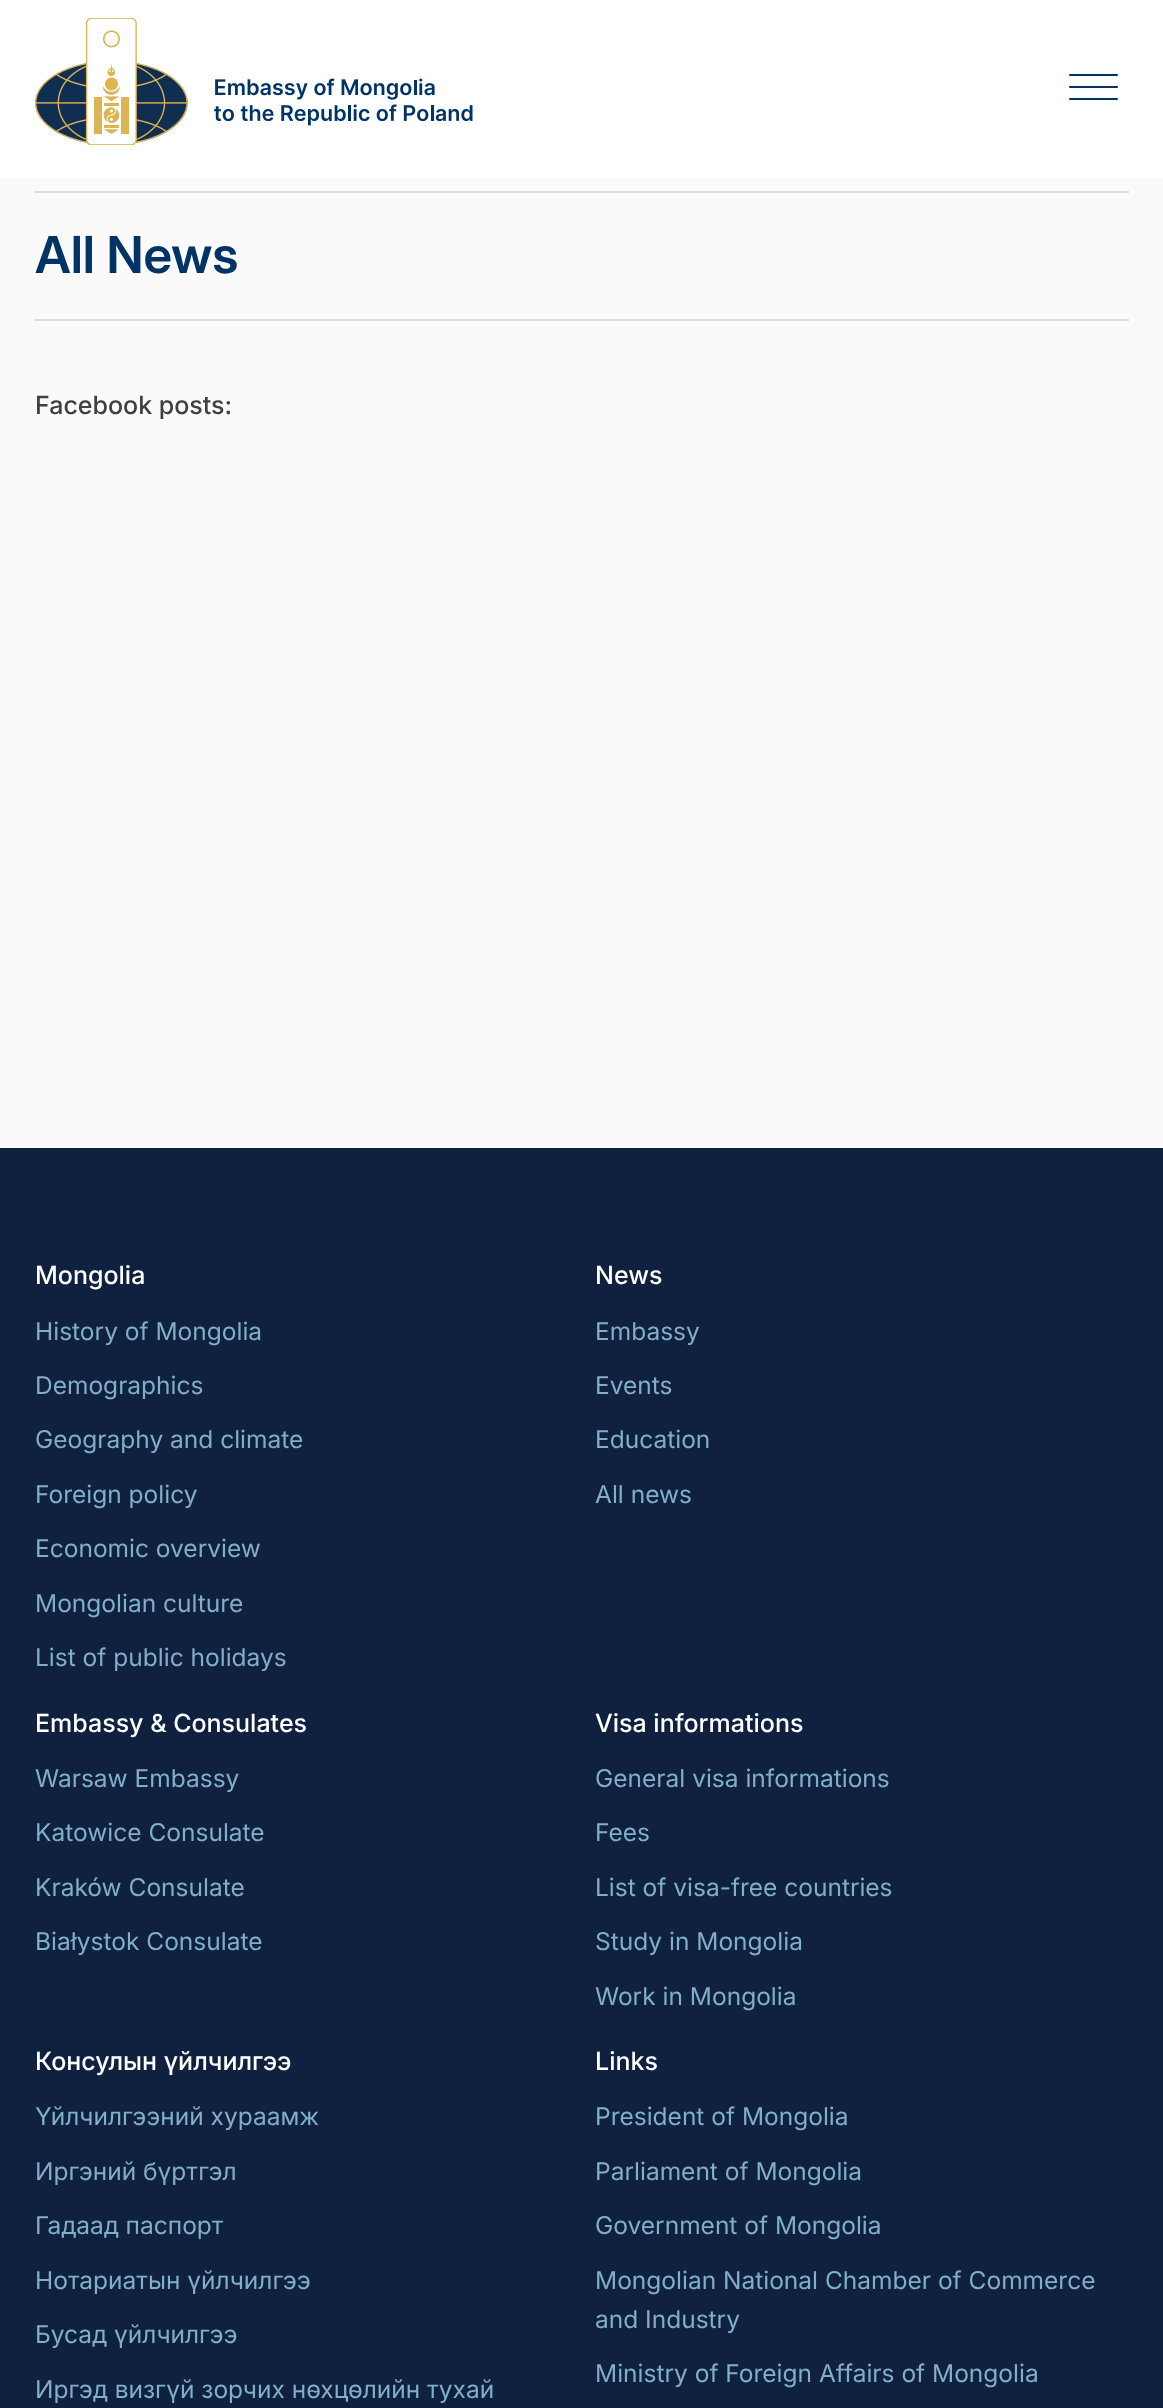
<svg xmlns="http://www.w3.org/2000/svg" xmlns:xlink="http://www.w3.org/1999/xlink" width="1163" height="2408" viewBox="0 0 1163 2408">
<style>
.cls-1{font:600 51px Inter;fill:#003366}
.cls-2{font:500 25px Inter;fill:#404040}
.cls-3{font:500 25px Inter;fill:#ffffff}
.cls-4{font:24.5px Inter;fill:#80aecb}
</style>
<rect width="100%" height="100%" fill="#fafafa"/>
<rect fill="#ffffff" x="0" y="0" width="1163" height="177"/>
<image xlink:href="image0.png" x="35" y="18" width="438" height="127"/>
<rect fill="#003366" x="1069" y="86" width="49" height="2" rx="1"/>
<rect fill="#003366" x="1069" y="74" width="49" height="2" rx="1"/>
<rect fill="#003366" x="1069" y="98" width="49" height="2" rx="1"/>
<rect fill="#dcdcdc" x="35" y="191" width="1094" height="2"/>
<rect fill="#dcdcdc" x="35" y="319" width="1094" height="2"/>
<rect fill="#0f213e" x="0" y="1148" width="1163" height="1260"/>
<text class="cls-1" x="35" y="273">All News</text>
<text class="cls-2" x="35" y="414">Facebook posts:</text>
<text class="cls-3" x="35" y="1284">Mongolia</text>
<text class="cls-4" x="35" y="1340">History of Mongolia</text>
<text class="cls-4" x="35" y="1394">Demographics</text>
<text class="cls-4" x="35" y="1448">Geography and climate</text>
<text class="cls-4" x="35" y="1503">Foreign policy</text>
<text class="cls-4" x="35" y="1557">Economic overview</text>
<text class="cls-4" x="35" y="1612">Mongolian culture</text>
<text class="cls-4" x="35" y="1666">List of public holidays</text>
<text class="cls-3" x="595" y="1284">News</text>
<text class="cls-4" x="595" y="1340">Embassy</text>
<text class="cls-4" x="595" y="1394">Events</text>
<text class="cls-4" x="595" y="1448">Education</text>
<text class="cls-4" x="595" y="1503">All news</text>
<text class="cls-3" x="35" y="1732">Embassy &amp; Consulates</text>
<text class="cls-4" x="35" y="1787">Warsaw Embassy</text>
<text class="cls-4" x="35" y="1841">Katowice Consulate</text>
<text class="cls-4" x="35" y="1896">Kraków Consulate</text>
<text class="cls-4" x="35" y="1950">Białystok Consulate</text>
<text class="cls-3" x="595" y="1732">Visa informations</text>
<text class="cls-4" x="595" y="1787">General visa informations</text>
<text class="cls-4" x="595" y="1841">Fees</text>
<text class="cls-4" x="595" y="1896">List of visa-free countries</text>
<text class="cls-4" x="595" y="1950">Study in Mongolia</text>
<text class="cls-4" x="595" y="2005">Work in Mongolia</text>
<text class="cls-3" x="35" y="2070">Консулын үйлчилгээ</text>
<text class="cls-4" x="35" y="2125">Үйлчилгээний хураамж</text>
<text class="cls-4" x="35" y="2180">Иргэний бүртгэл</text>
<text class="cls-4" x="35" y="2234">Гадаад паспорт</text>
<text class="cls-4" x="35" y="2289">Нотариатын үйлчилгээ</text>
<text class="cls-4" x="35" y="2343">Бусад үйлчилгээ</text>
<text class="cls-4" x="35" y="2398">Иргэд визгүй зорчих нөхцөлийн тухай</text>
<text class="cls-3" x="595" y="2070">Links</text>
<text class="cls-4" x="595" y="2125">President of Mongolia</text>
<text class="cls-4" x="595" y="2180">Parliament of Mongolia</text>
<text class="cls-4" x="595" y="2234">Government of Mongolia</text>
<text class="cls-4"><tspan x="595" y="2289">Mongolian National Chamber of Commerce</tspan><tspan x="595" y="2328">and Industry</tspan></text>
<text class="cls-4" x="595" y="2382">Ministry of Foreign Affairs of Mongolia</text>
</svg>
